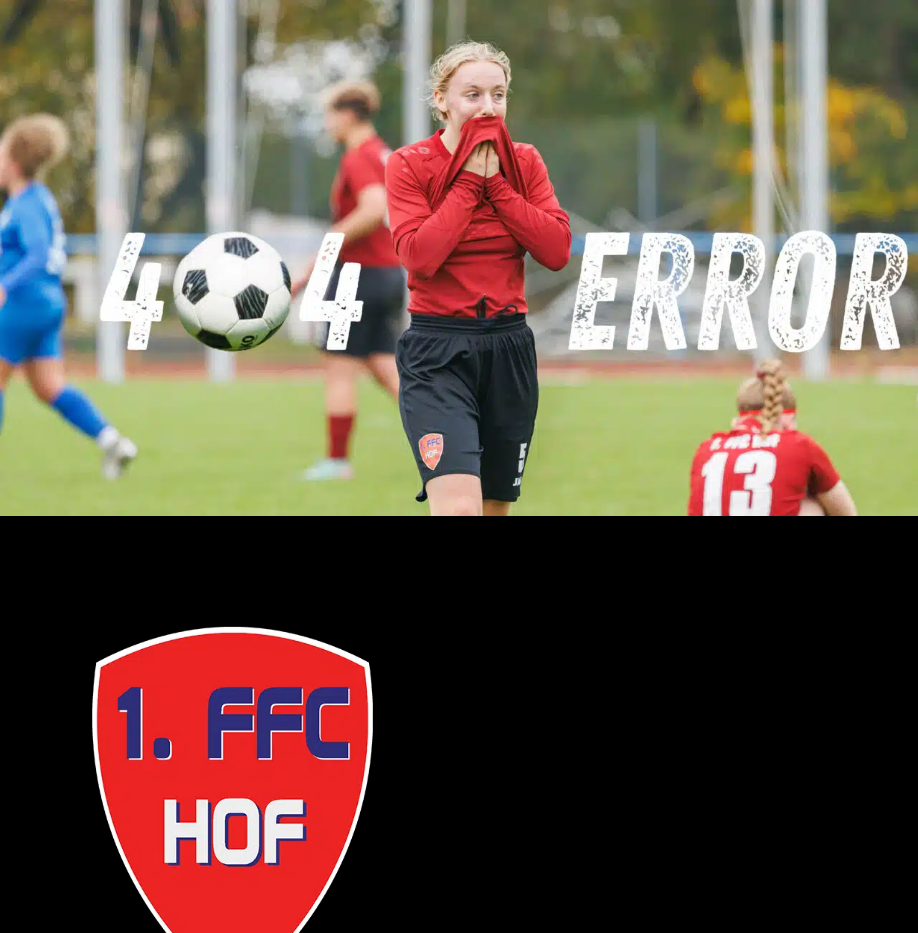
<svg xmlns="http://www.w3.org/2000/svg" xmlns:xlink="http://www.w3.org/1999/xlink" width="918" height="933" viewBox="0 0 918 933">
<rect width="100%" height="100%" fill="#ffffff"/>
<image xlink:href="image0.png" x="0" y="0" width="918" height="516"/>
<rect fill="#000000" x="0" y="516" width="918" height="417"/>
<image xlink:href="image1.png" x="92" y="626" width="281" height="307"/>
</svg>
